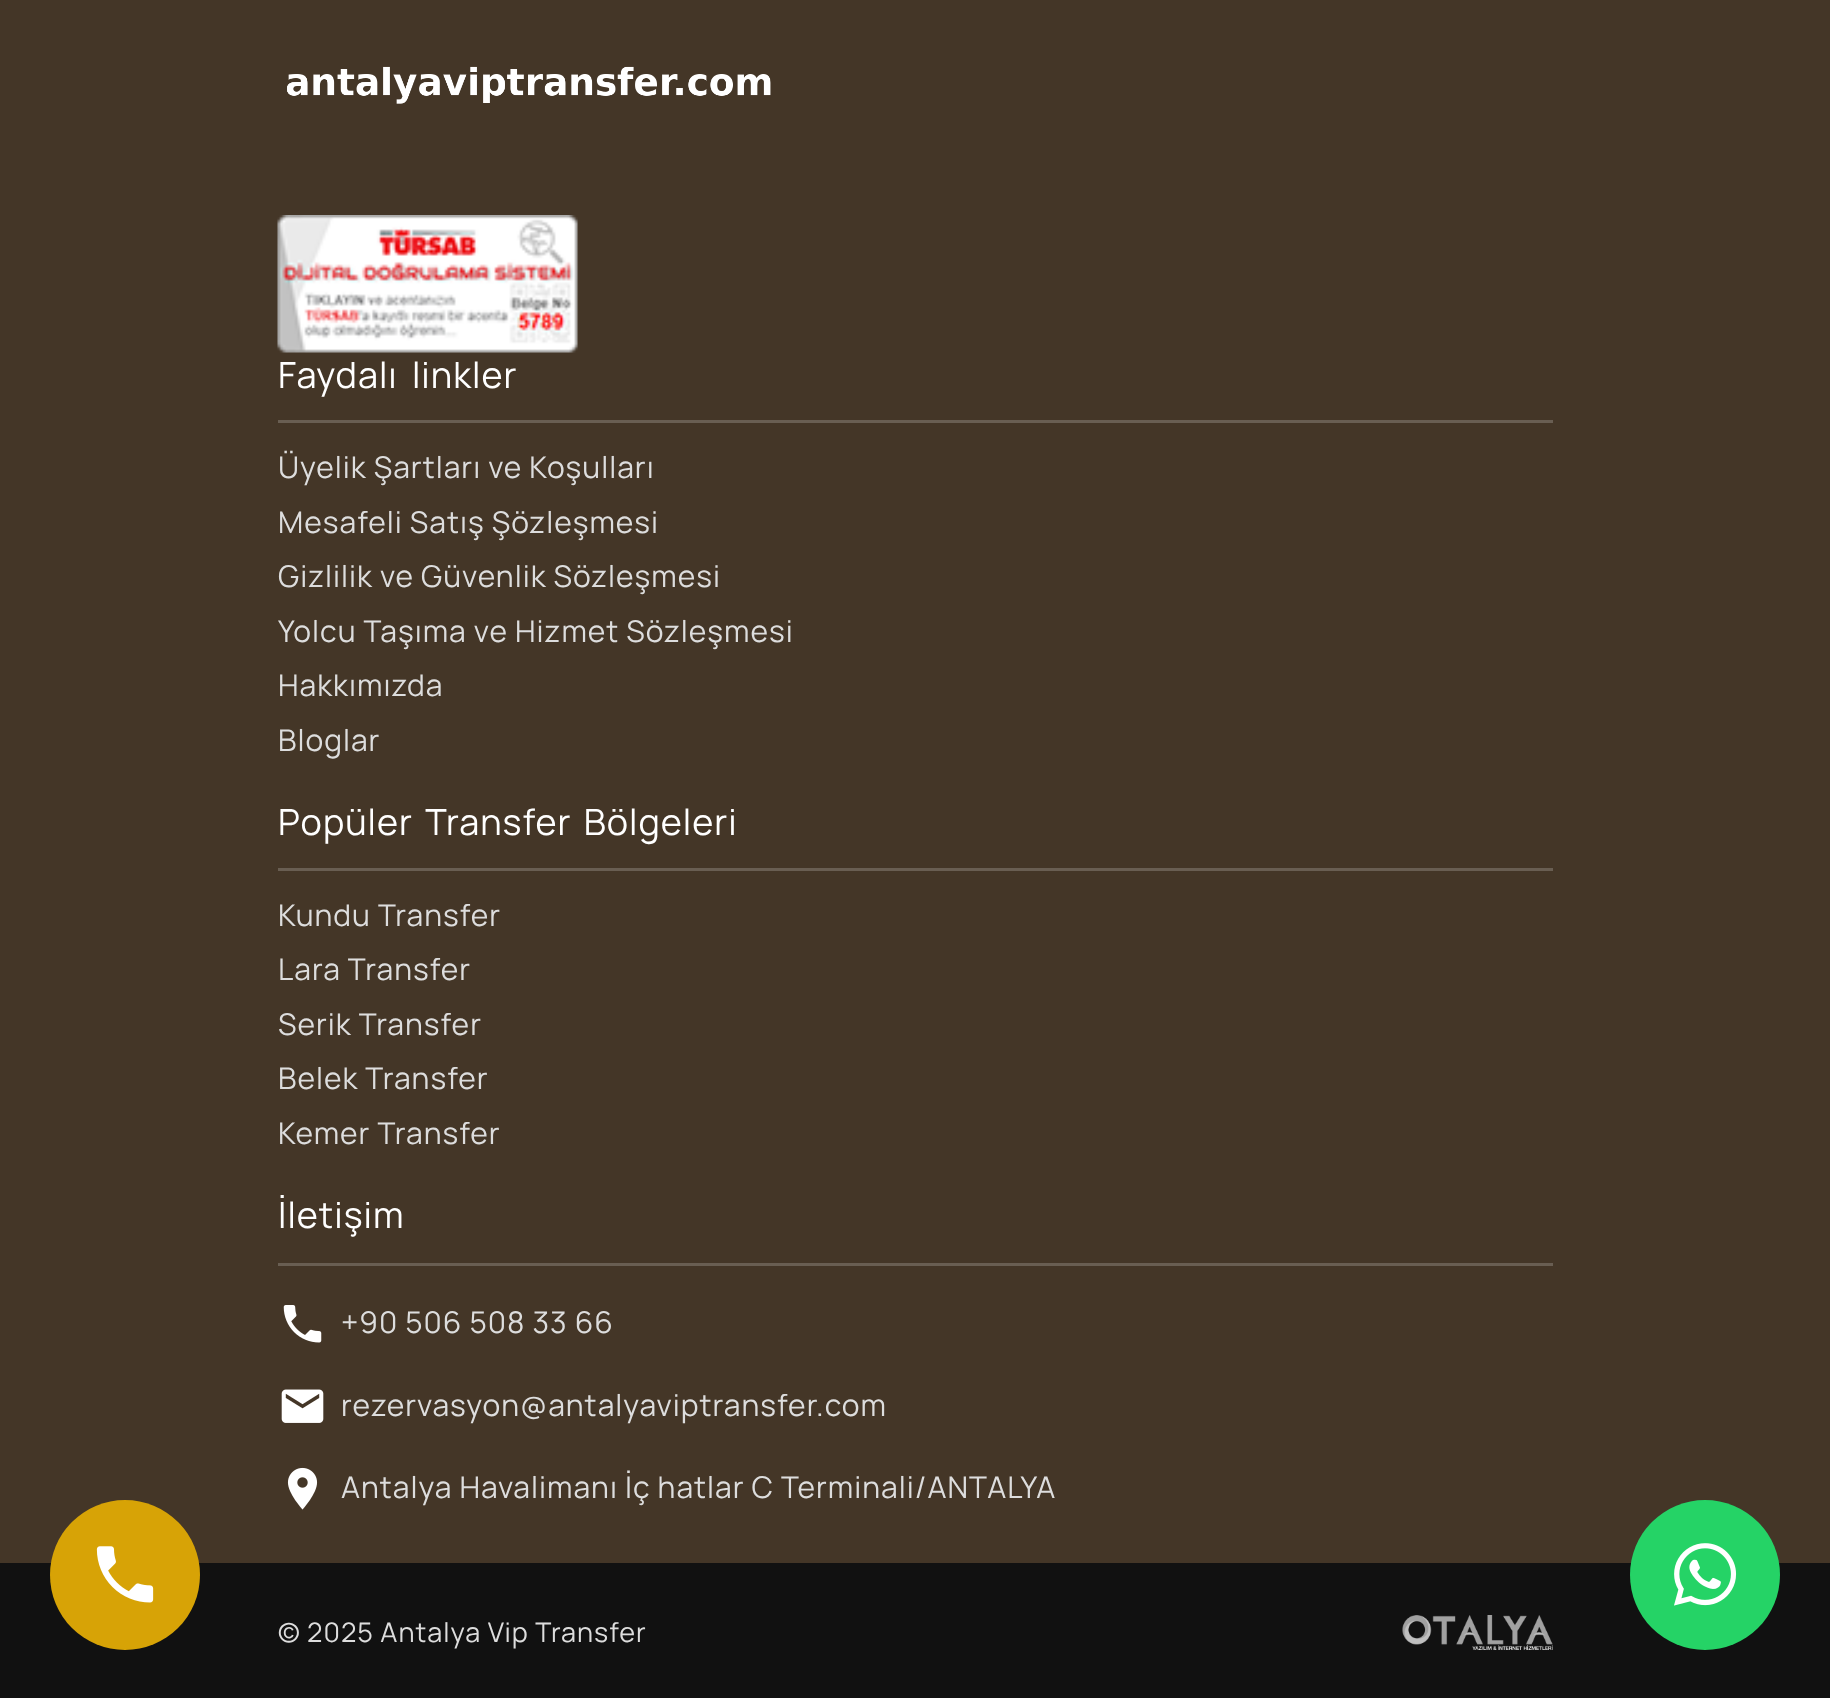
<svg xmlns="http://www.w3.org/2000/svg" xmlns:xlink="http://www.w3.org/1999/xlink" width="1830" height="1698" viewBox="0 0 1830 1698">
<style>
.cls-1{font:36px Manrope;letter-spacing:1px;fill:#ffffff}
.cls-2{font:30px Manrope;letter-spacing:1px;fill:#dddddd}
.cls-3{font:27px Manrope;letter-spacing:1px;fill:#dddddd}
</style>
<rect width="100%" height="100%" fill="#443627"/>
<rect fill="#111111" x="0" y="1563" width="1830" height="135"/>
<circle fill="#d7a306" cx="125" cy="1575" r="75"/>
<image xlink:href="image0.png" x="96" y="1546" width="58" height="57"/>
<image xlink:href="image1.png" x="287" y="66" width="484" height="38"/>
<image xlink:href="image2.png" x="277" y="215" width="301" height="138"/>
<rect fill="#695e52" x="278" y="420" width="1275" height="3"/>
<rect fill="#695e52" x="278" y="868" width="1275" height="3"/>
<rect fill="#695e52" x="278" y="1263" width="1275" height="3"/>
<image xlink:href="image3.png" x="283" y="1305" width="39" height="38"/>
<image xlink:href="image4.png" x="281" y="1389" width="43" height="34"/>
<image xlink:href="image5.png" x="287" y="1467" width="31" height="43"/>
<image xlink:href="image6.png" x="1402" y="1615" width="151" height="35"/>
<circle fill="#25d366" cx="1705" cy="1575" r="75"/>
<image xlink:href="image7.png" x="1674" y="1543" width="63" height="63"/>
<text class="cls-1" x="278" y="388" word-spacing="6">Faydalı linkler</text>
<text class="cls-2"><tspan x="278" y="478">Üyelik Şartları ve Koşulları</tspan><tspan x="278" y="533">Mesafeli Satış Şözleşmesi</tspan><tspan x="278" y="587">Gizlilik ve Güvenlik Sözleşmesi</tspan><tspan x="278" y="642">Yolcu Taşıma ve Hizmet Sözleşmesi</tspan><tspan x="278" y="696">Hakkımızda</tspan><tspan x="278" y="751">Bloglar</tspan></text>
<text class="cls-1" x="278" y="835" word-spacing="4">Popüler Transfer Bölgeleri</text>
<text class="cls-2"><tspan x="278" y="926">Kundu Transfer</tspan><tspan x="278" y="980">Lara Transfer</tspan><tspan x="278" y="1035">Serik Transfer</tspan><tspan x="278" y="1089">Belek Transfer</tspan><tspan x="278" y="1144">Kemer Transfer</tspan></text>
<text class="cls-1" x="278" y="1228">İletişim</text>
<text class="cls-2" x="341" y="1333">+90 506 508 33 66</text>
<text class="cls-2" x="341" y="1416">rezervasyon@antalyaviptransfer.com</text>
<text class="cls-2" x="341" y="1498">Antalya Havalimanı İç hatlar C Terminali/ANTALYA</text>
<text class="cls-3" x="278" y="1642">© 2025 Antalya Vip Transfer</text>
</svg>
